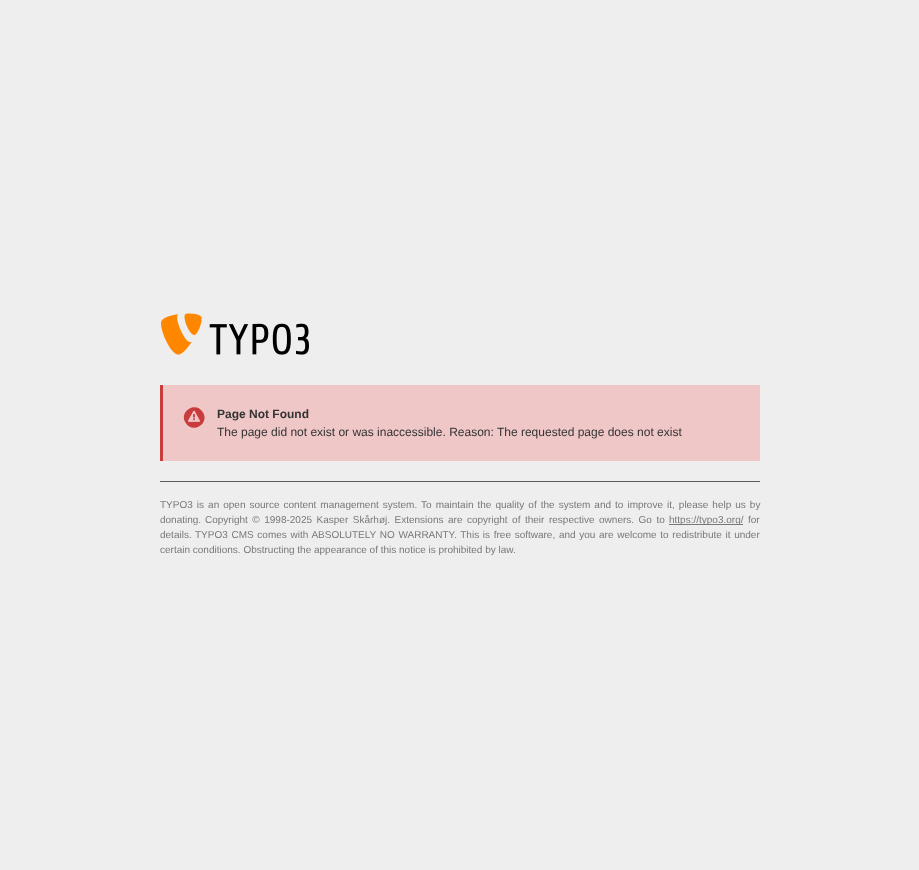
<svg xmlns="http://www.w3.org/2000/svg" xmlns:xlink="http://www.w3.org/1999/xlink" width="919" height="870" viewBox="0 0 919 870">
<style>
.cls-1{font:bold 12px Liberation Sans;fill:#333333}
.cls-2{font:12px Liberation Sans;fill:#333333}
.cls-3{font:10px Liberation Sans;fill:#797878}
</style>
<rect width="100%" height="100%" fill="#eeeeee"/>
<image xlink:href="image0.png" x="161" y="313" width="148" height="42"/>
<rect fill="#efc7c7" x="163" y="385" width="597" height="76"/>
<rect fill="#c83c3c" x="160" y="385" width="3" height="76"/>
<path fill="#c83c3c" d="M203 412.5C210 424 192 434.5 185.5 422.5C178.5 411 196.5 400.5 203 412.5Z"/>
<image xlink:href="image1.png" x="188" y="410" width="12" height="12"/>
<rect fill="#5c5c5c" x="160" y="481" width="600" height="1"/>
<rect fill="#797878" x="669" y="524" width="74" height="1"/>
<text class="cls-1" x="217" y="418">Page Not Found</text>
<text class="cls-2" x="217" y="436">The page did not exist or was inaccessible. Reason: The requested page does not exist</text>
<text class="cls-3"><tspan x="160" y="508" word-spacing="1.25">TYPO3 is an open source content management system. To maintain the quality of the system and to improve it, please help us by</tspan><tspan x="160" y="523">donating.</tspan></text>
<text class="cls-3" x="205" y="523" word-spacing="1.75">Copyright © 1998-2025 Kasper Skårhøj. Extensions are copyright of their respective owners. Go to</text>
<text class="cls-3" x="669" y="523">https://typo3.org/</text>
<text class="cls-3" x="748" y="523">for</text>
<text class="cls-3" x="160" y="538">details.</text>
<text class="cls-3" x="195" y="538" word-spacing="0.9">TYPO3 CMS comes with ABSOLUTELY NO WARRANTY. This is free software, and you are welcome to redistribute it under</text>
<text class="cls-3" x="160" y="553">certain conditions. Obstructing the appearance of this notice is prohibited by law.</text>
</svg>
